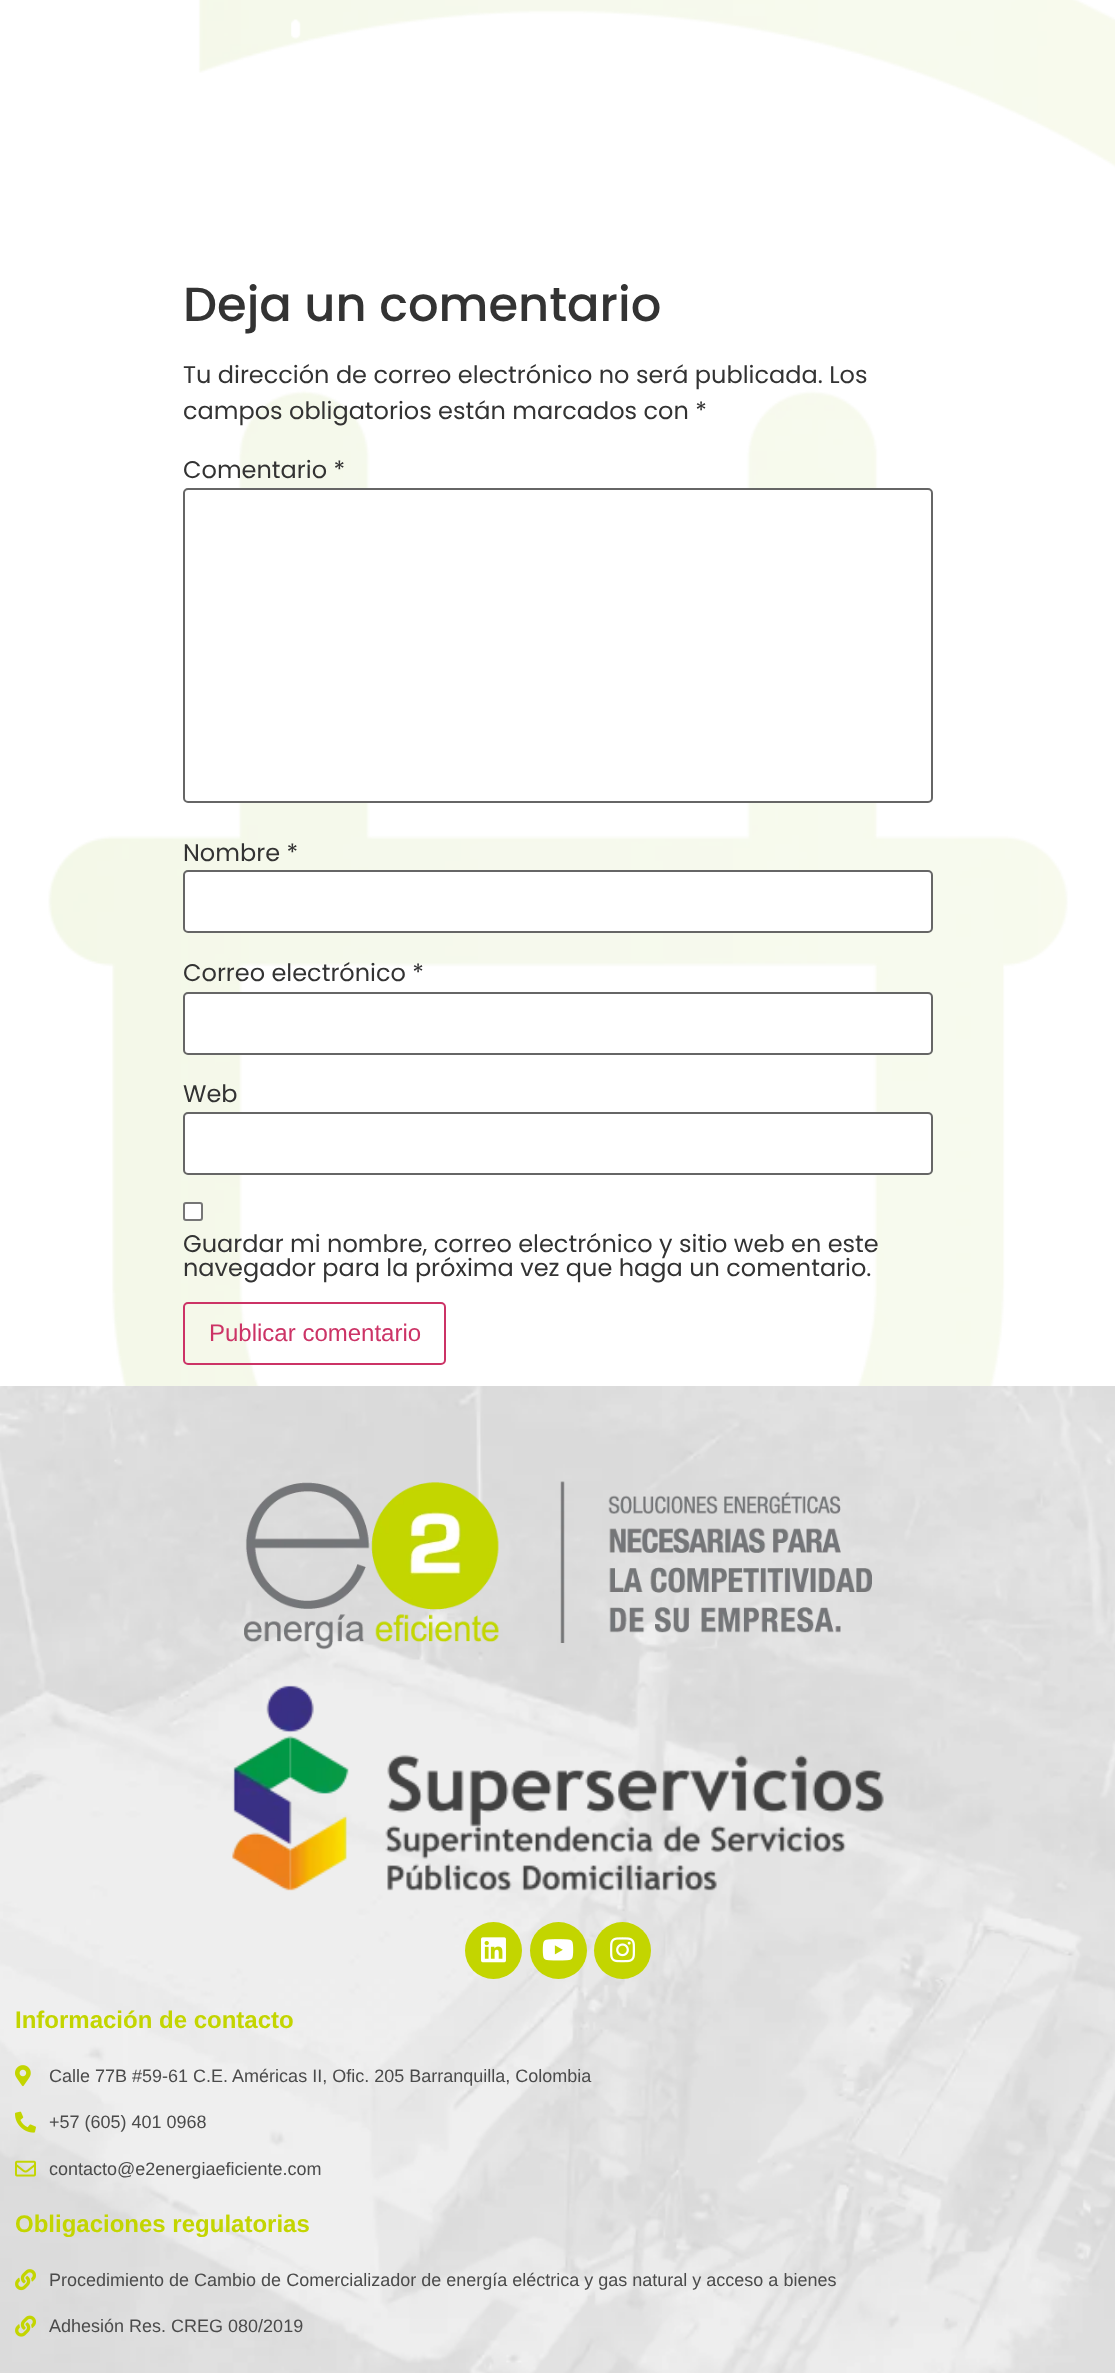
<svg xmlns="http://www.w3.org/2000/svg" xmlns:xlink="http://www.w3.org/1999/xlink" width="1115" height="2373" viewBox="0 0 1115 2373">
<style>
.cls-1{font:500 48px Poppins;fill:#333333}
.cls-2{font:24px Poppins;fill:#333333}
.cls-3{font:24px Liberation Sans;fill:#cc3366}
.cls-4{font:bold 24px Liberation Sans;fill:#c3d500}
.cls-5{font:18px Liberation Sans;fill:#4b4b4b}
</style>
<rect width="100%" height="100%" fill="#ffffff"/>
<image xlink:href="image0.png" x="48" y="0" width="1067" height="1386"/>
<image xlink:href="image1.png" x="291" y="19" width="10" height="20"/>
<rect fill="#ffffff" stroke="#666666" stroke-width="2" x="184" y="489" width="748" height="313" rx="4"/>
<rect fill="#ffffff" stroke="#666666" stroke-width="2" x="184" y="871" width="748" height="61" rx="4"/>
<rect fill="#ffffff" stroke="#666666" stroke-width="2" x="184" y="993" width="748" height="61" rx="4"/>
<rect fill="#ffffff" stroke="#666666" stroke-width="2" x="184" y="1113" width="748" height="61" rx="4"/>
<rect fill="#ffffff" stroke="#767676" stroke-width="2" x="184" y="1203" width="18" height="17" rx="2"/>
<rect fill="none" stroke="#cc3366" stroke-width="2" x="184" y="1303" width="261" height="61" rx="4"/>
<image xlink:href="image2.png" x="0" y="1386" width="1115" height="987"/>
<image xlink:href="image3.png" x="244" y="1481" width="628" height="169"/>
<image xlink:href="image4.png" x="232" y="1685" width="652" height="206"/>
<circle fill="#c3d500" cx="493.5" cy="1950.5" r="28.5"/>
<image xlink:href="image5.png" x="481" y="1937" width="25" height="26"/>
<circle fill="#c3d500" cx="558.5" cy="1950.5" r="28.5"/>
<image xlink:href="image6.png" x="542" y="1939" width="32" height="22"/>
<circle fill="#c3d500" cx="622.5" cy="1950.5" r="28.5"/>
<image xlink:href="image7.png" x="610" y="1937" width="25" height="26"/>
<image xlink:href="image8.png" x="15" y="2065" width="16" height="22"/>
<image xlink:href="image9.png" x="15" y="2111" width="21" height="22"/>
<image xlink:href="image10.png" x="15" y="2160" width="21" height="17"/>
<image xlink:href="image11.png" x="15" y="2269" width="21" height="22"/>
<image xlink:href="image12.png" x="15" y="2315" width="21" height="22"/>
<text class="cls-1" x="183" y="321">Deja un comentario</text>
<text class="cls-2"><tspan x="183" y="383">Tu dirección de correo electrónico no será publicada. Los</tspan><tspan x="183" y="419">campos obligatorios están marcados con *</tspan></text>
<text class="cls-2" x="183" y="478">Comentario *</text>
<text class="cls-2" x="183" y="861">Nombre *</text>
<text class="cls-2" x="183" y="981">Correo electrónico *</text>
<text class="cls-2" x="183" y="1102">Web</text>
<text class="cls-2"><tspan x="183" y="1252">Guardar mi nombre, correo electrónico y sitio web en este</tspan><tspan x="183" y="1276">navegador para la próxima vez que haga un comentario.</tspan></text>
<text class="cls-3" x="209" y="1341">Publicar comentario</text>
<text class="cls-4" x="15" y="2028">Información de contacto</text>
<text class="cls-5" x="49" y="2082">Calle 77B #59-61 C.E. Américas II, Ofic. 205 Barranquilla, Colombia</text>
<text class="cls-5" x="49" y="2128">+57 (605) 401 0968</text>
<text class="cls-5" x="49" y="2175">contacto@e2energiaeficiente.com</text>
<text class="cls-4" x="15" y="2232">Obligaciones regulatorias</text>
<text class="cls-5" x="49" y="2286">Procedimiento de Cambio de Comercializador de energía eléctrica y gas natural y acceso a bienes</text>
<text class="cls-5" x="49" y="2332">Adhesión Res. CREG 080/2019</text>
</svg>
